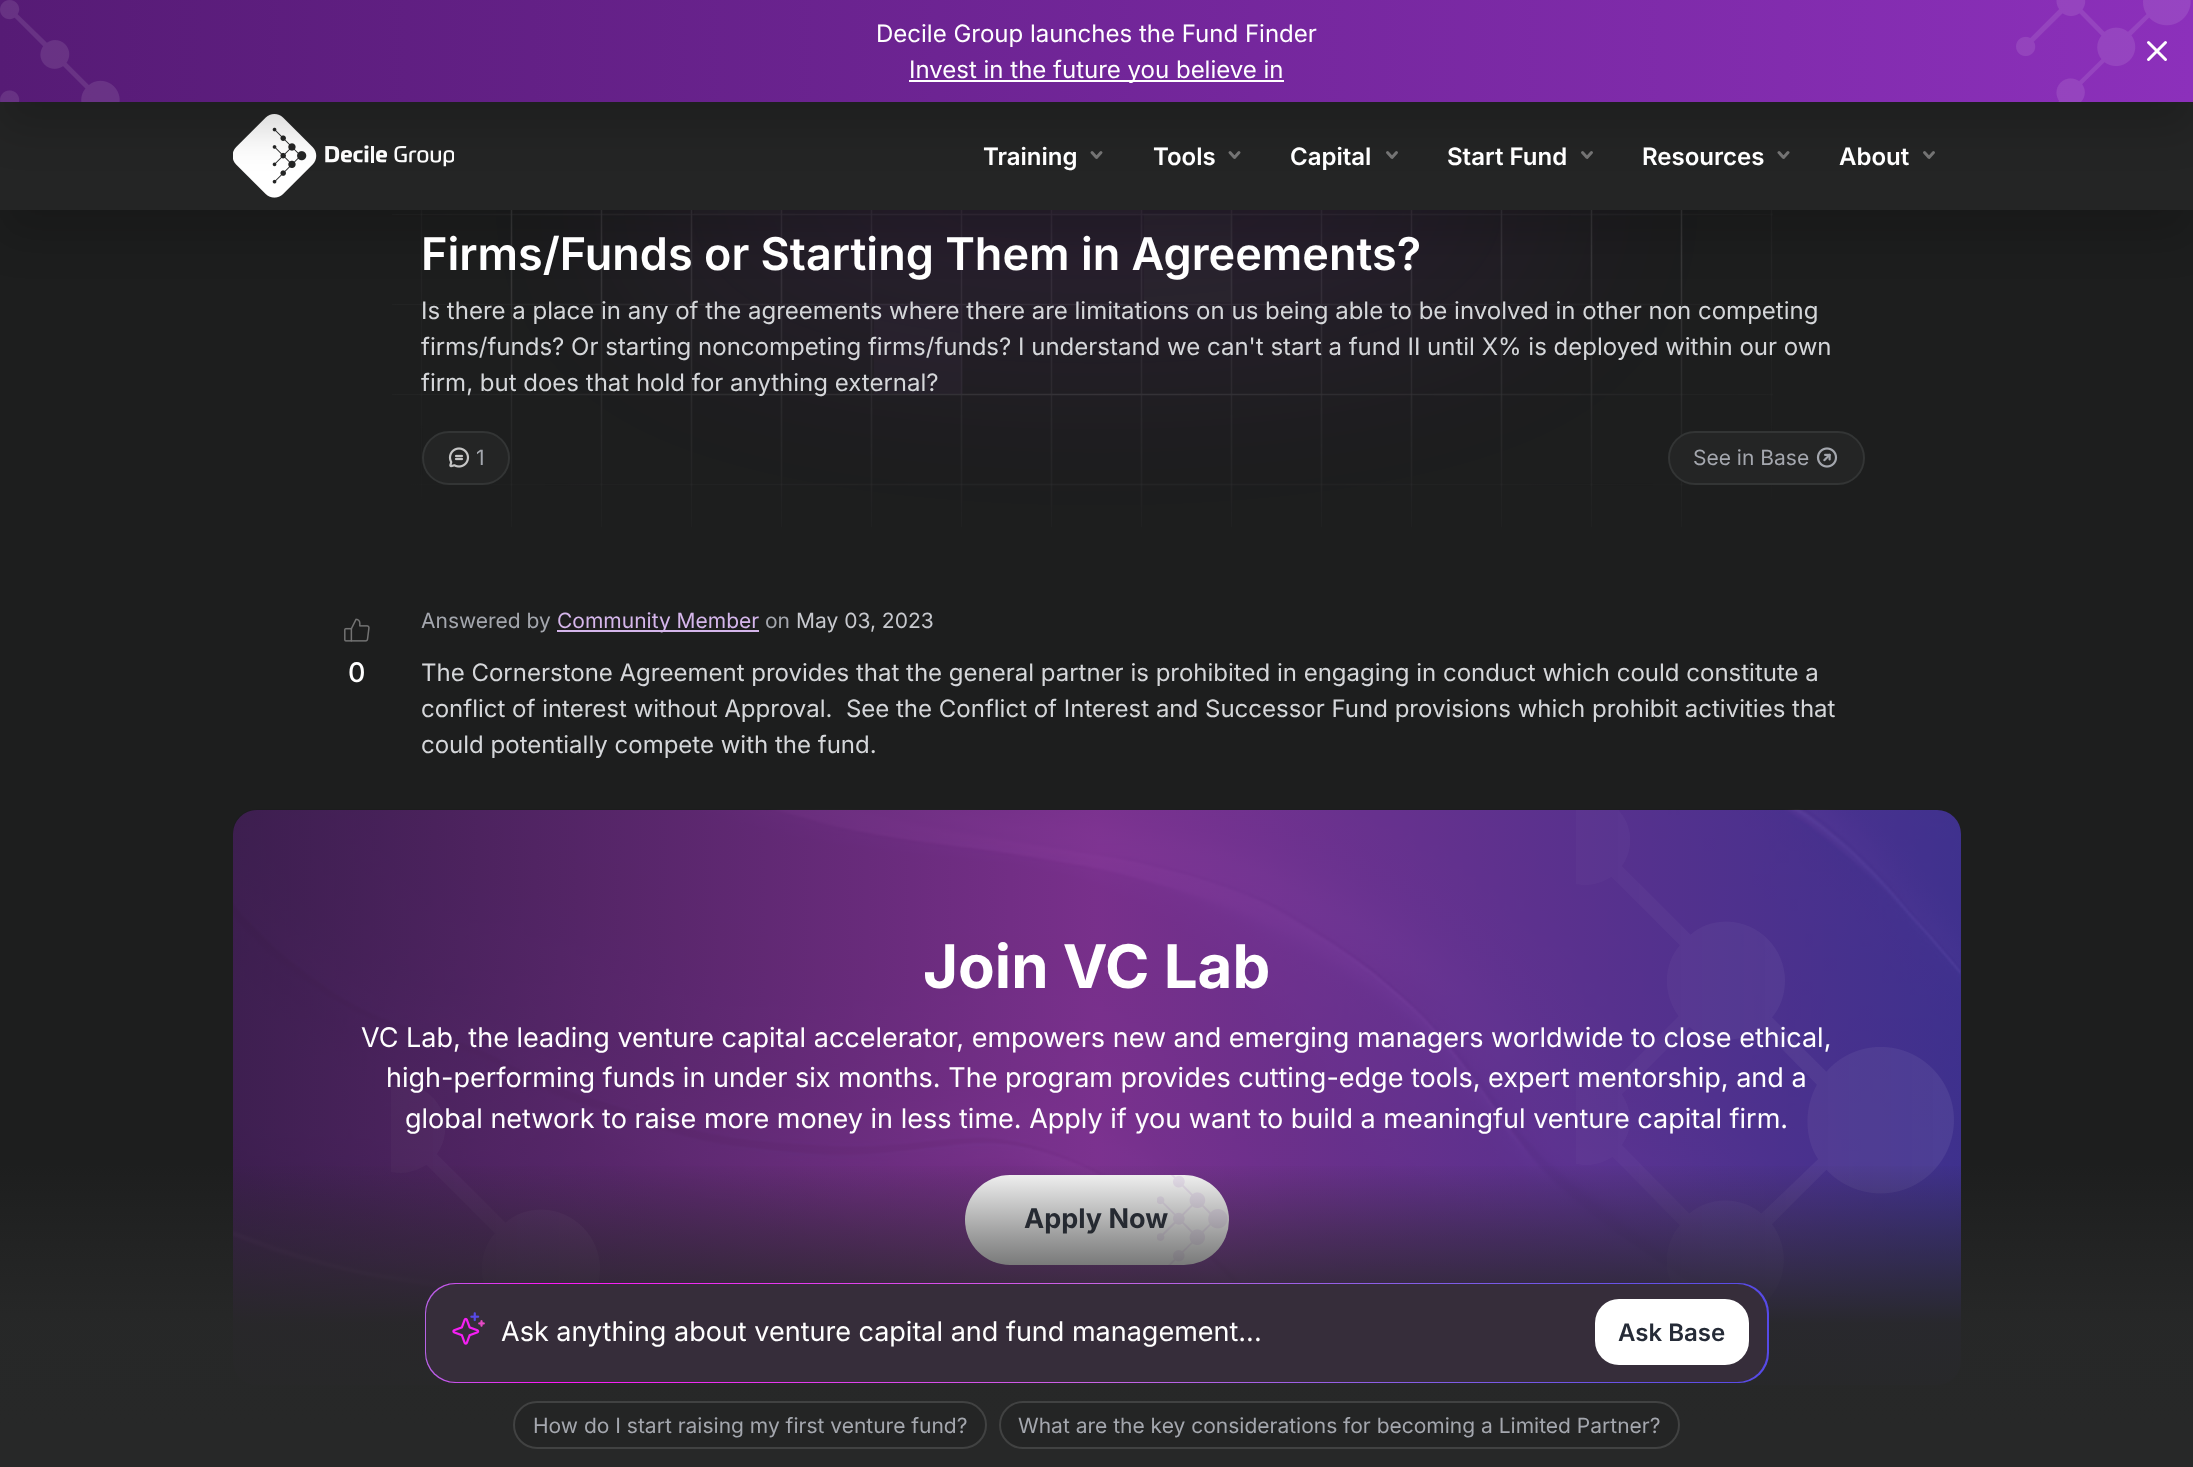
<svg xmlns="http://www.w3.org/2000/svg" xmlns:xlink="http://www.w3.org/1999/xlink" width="2193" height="1467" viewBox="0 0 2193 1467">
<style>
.cls-1{font:24px Inter;fill:#ffffff}
.cls-2{font:600 24px Inter;fill:#ffffff}
.cls-3{font:600 45px Inter;fill:#ffffff}
.cls-4{font:24px Inter;fill:#d5d7da}
.cls-5{font:21px Inter;fill:#a4a7ae}
.cls-6{font:500 27px Inter;fill:#ffffff}
.cls-7{font:21px Inter;fill:#d5b6eb}
.cls-8{font:21px Inter;fill:#c7c9ce}
.cls-9{font:bold 60px Inter;fill:#ffffff}
.cls-10{font:27px Inter;fill:#ffffff}
.cls-11{font:bold 27px Inter;fill:#252b37}
.cls-12{font:600 24px Inter;fill:#252b37}
</style>
<defs>
<linearGradient id="g1" gradientUnits="userSpaceOnUse" x1="0" y1="51" x2="2193" y2="51"><stop offset="0" stop-color="#561b75"/><stop offset="1" stop-color="#8c30bb"/></linearGradient>
<linearGradient id="g2" gradientUnits="userSpaceOnUse" x1="233" y1="1097" x2="1961" y2="1097"><stop offset="0" stop-color="#542170" stop-opacity="0.6"/><stop offset="0.5" stop-color="#b83fd6" stop-opacity="0.6"/><stop offset="1" stop-color="#563fd6" stop-opacity="0.6"/></linearGradient>
<linearGradient id="g3" gradientUnits="userSpaceOnUse" x1="1097" y1="1162" x2="1097" y2="1467"><stop offset="0" stop-color="#272828" stop-opacity="0"/><stop offset="0.24" stop-color="#272828" stop-opacity="0.45"/><stop offset="0.53" stop-color="#272828" stop-opacity="0.95"/><stop offset="0.86" stop-color="#272828"/></linearGradient>
<linearGradient id="g4" gradientUnits="userSpaceOnUse" x1="425" y1="1333" x2="1769" y2="1333"><stop offset="0" stop-color="#b763e6"/><stop offset="0.09" stop-color="#fd17f6"/><stop offset="0.5" stop-color="#c964e5"/><stop offset="0.75" stop-color="#815de6"/><stop offset="1" stop-color="#564ae7"/></linearGradient>
</defs>
<rect width="100%" height="100%" fill="#1d1e1e"/>
<image xlink:href="image3.png" x="392" y="210" width="1381" height="317"/>
<rect fill="#000000" fill-opacity="0.16" filter="blur(21px)" x="0" y="27" width="2193" height="210"/>
<rect fill="#242525" x="0" y="102" width="2193" height="108"/>
<image xlink:href="image2.png" x="233" y="114" width="221" height="84"/>
<rect fill="#000000" fill-opacity="0.16" filter="blur(21px)" x="0" y="27" width="2193" height="102"/>
<rect fill="url(#g1)" x="0" y="0" width="2193" height="102"/>
<image xlink:href="image0.png" x="0" y="0" width="120" height="102"/>
<image xlink:href="image1.png" x="2016" y="0" width="175" height="102"/>
<path fill="none" stroke="#ffffff" stroke-width="3" stroke-linecap="round" stroke-linejoin="round" d="M2165.5 42.5L2148.5 59.5M2165.5 59.5L2148.5 42.5"/>
<rect fill="#ffffff" x="909" y="80" width="375" height="2"/>
<path fill="none" stroke="#737373" stroke-width="3" stroke-linecap="round" stroke-linejoin="round" d="M1101 152.5L1096.5 157.5L1092 152.5"/>
<path fill="none" stroke="#737373" stroke-width="3" stroke-linecap="round" stroke-linejoin="round" d="M1239 152.5L1234.5 157.5L1230 152.5"/>
<path fill="none" stroke="#737373" stroke-width="3" stroke-linecap="round" stroke-linejoin="round" d="M1396.5 152.5L1392 157.5L1387.5 152.5"/>
<path fill="none" stroke="#737373" stroke-width="3" stroke-linecap="round" stroke-linejoin="round" d="M1591.5 152.5L1587 157.5L1582.5 152.5"/>
<path fill="none" stroke="#737373" stroke-width="3" stroke-linecap="round" stroke-linejoin="round" d="M1788 152.5L1783.5 157.5L1779 152.5"/>
<path fill="none" stroke="#737373" stroke-width="3" stroke-linecap="round" stroke-linejoin="round" d="M1933.5 152.5L1929 157.5L1924.5 152.5"/>
<rect fill="#242525" stroke="#333535" stroke-width="2" x="423" y="432" width="86" height="52" rx="26"/>
<image xlink:href="image4.png" x="448" y="447" width="22" height="21"/>
<rect fill="#242525" stroke="#333535" stroke-width="2" x="1669" y="432" width="195" height="52" rx="26"/>
<image xlink:href="image5.png" x="1816" y="447" width="22" height="21"/>
<image xlink:href="image6.png" x="344" y="618" width="26" height="24"/>
<rect fill="#d5b6eb" x="557" y="630" width="202" height="2"/>
<image xlink:href="image7.png" x="233" y="809" width="1728" height="575"/>
<rect fill="url(#g2)" x="233" y="810" width="1728" height="575" rx="24"/>
<rect fill="#ffffff" x="965" y="1175" width="264" height="90" rx="45"/>
<image xlink:href="image10.png" x="1157" y="1175" width="71" height="90"/>
<text class="cls-1" x="876" y="42">Decile Group launches the Fund Finder</text>
<text class="cls-1" x="909" y="78">Invest in the future you believe in</text>
<text class="cls-2" x="983" y="165">Training</text>
<text class="cls-2" x="1153" y="165">Tools</text>
<text class="cls-2" x="1290" y="165">Capital</text>
<text class="cls-2" x="1447" y="165">Start Fund</text>
<text class="cls-2" x="1642" y="165">Resources</text>
<text class="cls-2" x="1839" y="165">About</text>
<text class="cls-3" x="421" y="270">Firms/Funds or Starting Them in Agreements?</text>
<text class="cls-4"><tspan x="421" y="319">Is there a place in any of the agreements where there are limitations on us being able to be involved in other non competing</tspan><tspan x="421" y="355">firms/funds? Or starting noncompeting firms/funds? I understand we can't start a fund II until X% is deployed within our own</tspan><tspan x="421" y="391">firm, but does that hold for anything external?</tspan></text>
<text class="cls-5" x="476" y="465">1</text>
<text class="cls-5" x="1693" y="465">See in Base</text>
<text class="cls-6" x="348" y="682">0</text>
<text class="cls-5" x="421" y="628">Answered by</text>
<text class="cls-7" x="557" y="628">Community Member</text>
<text class="cls-5" x="765" y="628">on</text>
<text class="cls-8" x="796" y="628">May 03, 2023</text>
<text class="cls-4" xml:space="preserve"><tspan x="421" y="681">The Cornerstone Agreement provides that the general partner is prohibited in engaging in conduct which could constitute a</tspan><tspan x="421" y="717">conflict of interest without Approval.  See the Conflict of Interest and Successor Fund provisions which prohibit activities that</tspan><tspan x="421" y="753">could potentially compete with the fund.</tspan></text>
<text class="cls-9" x="923" y="988">Join VC Lab</text>
<text class="cls-10" x="361" y="1047">VC Lab, the leading venture capital accelerator, empowers new and emerging managers worldwide to close ethical,</text>
<text class="cls-10" x="386" y="1087">high-performing funds in under six months. The program provides cutting-edge tools, expert mentorship, and a</text>
<text class="cls-10" x="405" y="1128">global network to raise more money in less time. Apply if you want to build a meaningful venture capital firm.</text>
<image xlink:href="image8.png" x="1576" y="810" width="378" height="575"/>
<image xlink:href="image9.png" x="391" y="1085" width="374" height="300"/>
<text class="cls-11" x="1024" y="1228">Apply Now</text>
<rect fill="url(#g3)" x="0" y="1166" width="2193" height="301"/>
<rect fill="url(#g4)" x="425" y="1283" width="1344" height="100" rx="30"/>
<rect fill="#362d3a" x="426" y="1284" width="1341" height="98" rx="30"/>
<image xlink:href="image11.png" x="452" y="1312" width="33" height="33"/>
<text class="cls-10" x="501" y="1341">Ask anything about venture capital and fund management...</text>
<rect fill="#ffffff" x="1595" y="1299" width="154" height="66" rx="24"/>
<text class="cls-12" x="1618" y="1341">Ask Base</text>
<rect fill="#242525" stroke="#414242" stroke-width="2" x="514" y="1402" width="472" height="46" rx="23"/>
<text class="cls-5" x="533" y="1433">How do I start raising my first venture fund?</text>
<rect fill="#242525" stroke="#414242" stroke-width="2" x="1000" y="1402" width="679" height="46" rx="23"/>
<text class="cls-5" x="1018" y="1433">What are the key considerations for becoming a Limited Partner?</text>
</svg>
